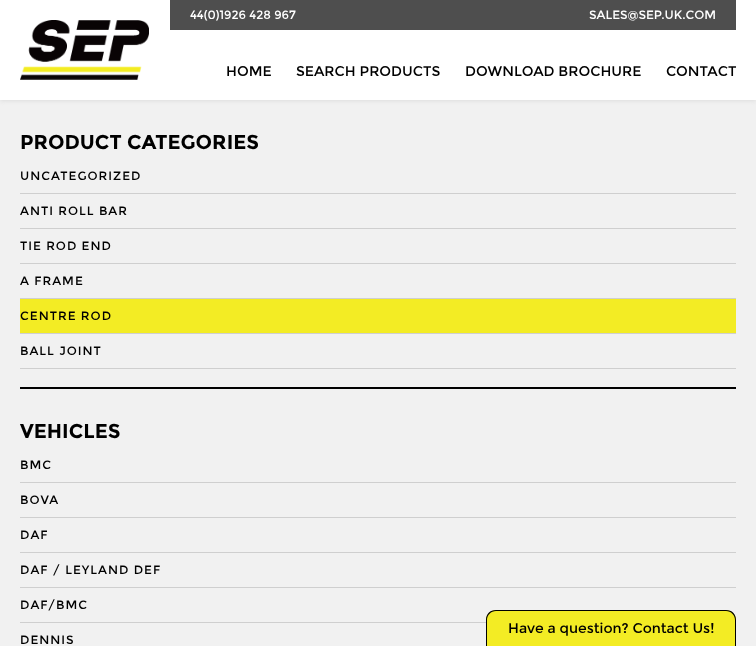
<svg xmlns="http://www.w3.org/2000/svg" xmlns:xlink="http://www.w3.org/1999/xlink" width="756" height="646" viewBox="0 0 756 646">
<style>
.cls-1{font:12px montserrat;fill:#ffffff}
.cls-2{font:14px montserrat;fill:#000000}
.cls-3{font:bold 20px montserrat;fill:#000000}
.cls-4{font:12px montserrat;letter-spacing:1px;fill:#000000}
</style>
<rect width="100%" height="100%" fill="#f1f1f1"/>
<rect fill="#d4d4d4" filter="blur(2.5px)" x="0" y="0" width="756" height="100"/>
<rect fill="#ffffff" x="0" y="0" width="756" height="100"/>
<rect fill="#4e4e4e" x="170" y="0" width="566" height="30"/>
<image xlink:href="image0.png" x="20" y="20" width="129" height="60"/>
<rect fill="#000000" x="20" y="387" width="716" height="2"/>
<rect fill="#cfcfcf" x="20" y="193" width="716" height="1"/>
<rect fill="#cfcfcf" x="20" y="228" width="716" height="1"/>
<rect fill="#cfcfcf" x="20" y="263" width="716" height="1"/>
<rect fill="#cfcfcf" x="20" y="298" width="716" height="1"/>
<rect fill="#f3ec24" x="20" y="299" width="716" height="34"/>
<rect fill="#cfcfcf" x="20" y="333" width="716" height="1"/>
<rect fill="#cfcfcf" x="20" y="368" width="716" height="1"/>
<rect fill="#cfcfcf" x="20" y="482" width="716" height="1"/>
<rect fill="#cfcfcf" x="20" y="517" width="716" height="1"/>
<rect fill="#cfcfcf" x="20" y="552" width="716" height="1"/>
<rect fill="#cfcfcf" x="20" y="587" width="716" height="1"/>
<rect fill="#cfcfcf" x="20" y="622" width="466" height="1"/>
<path fill="#f3ec24" d="M496 610H726C731.5 610 736 614.5 736 620V646H486V620C486 614.5 490.5 610 496 610Z"/>
<path fill="#000000" fill-rule="evenodd" d="M496 610H726C732 610 736 614 736 620V646H486V620C486 614 490 610 496 610ZM496 611H726C731 611 735 615 735 620V646H487V620C487 615 491 611 496 611Z"/>
<text class="cls-1" x="190" y="19">44(0)1926 428 967</text>
<text class="cls-1" x="589" y="19">SALES@SEP.UK.COM</text>
<text class="cls-2" x="226" y="76">HOME</text>
<text class="cls-2" x="296" y="76">SEARCH PRODUCTS</text>
<text class="cls-2" x="465" y="76">DOWNLOAD BROCHURE</text>
<text class="cls-2" x="666" y="76">CONTACT</text>
<text class="cls-3" x="20" y="149">PRODUCT CATEGORIES</text>
<text class="cls-4" x="20" y="180">UNCATEGORIZED</text>
<text class="cls-4" x="20" y="215">ANTI ROLL BAR</text>
<text class="cls-4" x="20" y="250">TIE ROD END</text>
<text class="cls-4" x="20" y="285">A FRAME</text>
<text class="cls-4" x="20" y="320">CENTRE ROD</text>
<text class="cls-4" x="20" y="355">BALL JOINT</text>
<text class="cls-3" x="20" y="438">VEHICLES</text>
<text class="cls-4" x="20" y="469">BMC</text>
<text class="cls-4" x="20" y="504">BOVA</text>
<text class="cls-4" x="20" y="539">DAF</text>
<text class="cls-4" x="20" y="574">DAF / LEYLAND DEF</text>
<text class="cls-4" x="20" y="609">DAF/BMC</text>
<text class="cls-4" x="20" y="644">DENNIS</text>
<text class="cls-2" x="508" y="633">Have a question? Contact Us!</text>
</svg>
